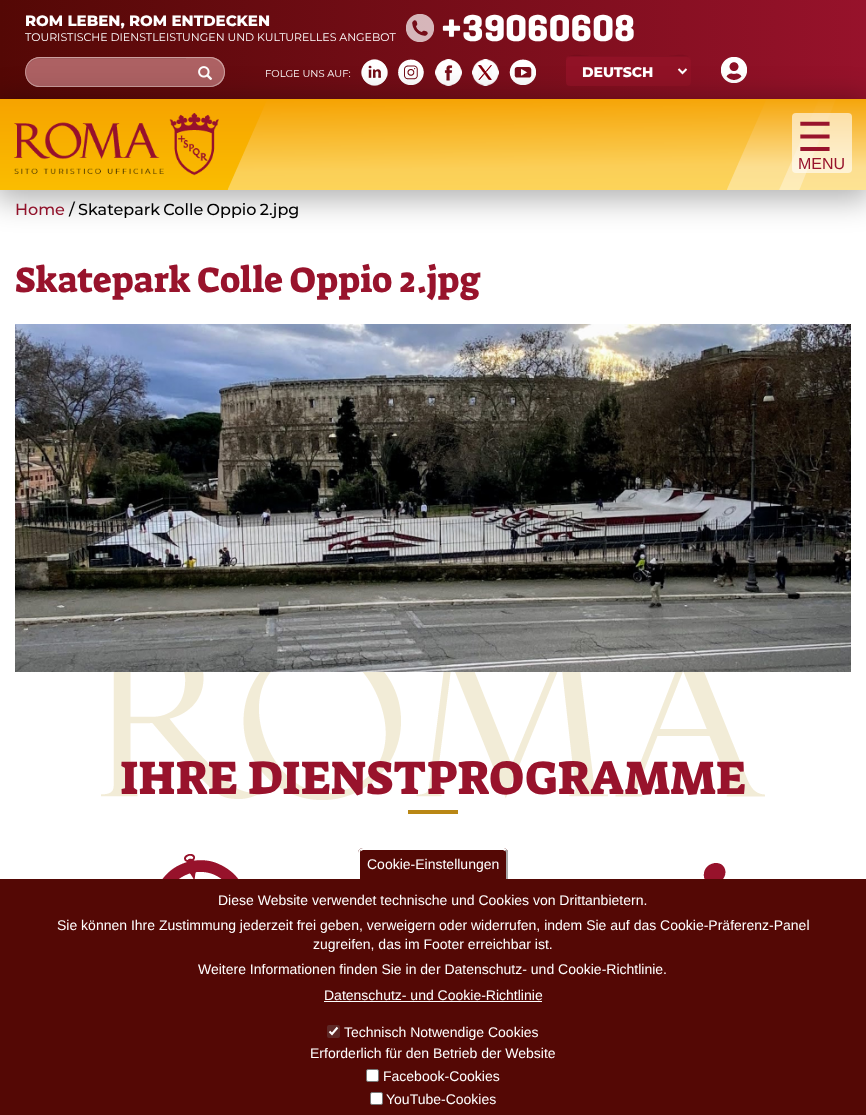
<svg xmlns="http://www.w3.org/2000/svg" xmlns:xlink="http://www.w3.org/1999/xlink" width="866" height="1115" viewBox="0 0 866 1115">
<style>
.cls-1{font:800 15px Montserrat;fill:#ffffff}
.cls-2{font:11px Montserrat;fill:#ffffff}
.cls-3{font:bold 38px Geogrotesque;fill:#ffffff}
.cls-4{font:10px Montserrat;fill:#ffffff}
.cls-5{font:800 14px Montserrat;fill:#ffffff}
.cls-6{font:40px DejaVu Sans;letter-spacing:14px;fill:#98132c}
.cls-7{font:16px Liberation Sans;fill:#98132c}
.cls-8{font:500 16px Montserrat;fill:#91132b}
.cls-9{font:500 16px Montserrat;fill:#000000}
.cls-10{font:36px Suez One;fill:#98132c}
.cls-11{font:48px Suez One;fill:#98132c}
.cls-12{font:14px Liberation Sans;fill:#ffffff}
</style>
<defs>
<linearGradient id="g1" gradientUnits="userSpaceOnUse" x1="0" y1="50" x2="866" y2="49"><stop offset="0" stop-color="#540805"/><stop offset="1" stop-color="#97122b"/></linearGradient>
</defs>
<rect width="100%" height="100%" fill="#ffffff"/>
<rect fill="url(#g1)" x="0" y="0" width="866" height="99"/>
<image xlink:href="image0.png" x="406" y="14" width="28" height="28"/>
<path fill="#ad6163" d="M40 57H187V87H40C31.5 87 25 80.5 25 72C25 63.5 31.5 57 40 57Z"/>
<path fill="#a05a5c" d="M40 59H187V58H64C54 58 25 52 26 72C26 65 32 59 40 59Z"/>
<path fill="#cca09f" fill-rule="evenodd" d="M40 57H187V87H37C20 83 22 57 40 57ZM40 58H187V86H40C32 86 26 80 26 72C26 64 32 58 40 58Z"/>
<path fill="#ad6163" d="M186 57H210C218.5 57 225 63.5 225 72C225 80.5 218.5 87 210 87H186Z"/>
<path fill="#cca09f" fill-rule="evenodd" d="M186 57H210C218.5 57 225 63.5 225 72C225 80.5 218.5 87 210 87H186ZM186 58H210C217.5 58 224 64.5 224 72C224 79.5 217.5 86 210 86H186Z"/>
<image xlink:href="image1.png" x="198" y="66" width="15" height="14"/>
<image xlink:href="image2.png" x="361" y="59" width="27" height="27"/>
<image xlink:href="image3.png" x="398" y="59" width="26" height="26"/>
<image xlink:href="image4.png" x="435" y="59" width="27" height="27"/>
<image xlink:href="image5.png" x="472" y="59" width="27" height="27"/>
<image xlink:href="image6.png" x="509" y="59" width="27" height="26"/>
<rect fill="#911226" x="566" y="56" width="125" height="30" rx="4"/>
<path fill="#000000" fill-opacity="0.07" d="M570 57H687C689 57 691 59 691 61C691 51 670 56 668 56H590C587 56 566 51 566 61C566 59 568 57 570 57Z"/>
<path fill="none" stroke="#ffffff" stroke-width="2" d="M678.5 69L682.5 73L686.5 69"/>
<image xlink:href="image7.png" x="721" y="57" width="26" height="26"/>
<rect fill="#000000" fill-opacity="0.3" filter="blur(15px)" x="-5" y="99" width="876" height="101"/>
<image xlink:href="image8.png" x="0" y="99" width="866" height="91"/>
<image xlink:href="image9.png" x="14" y="113" width="205" height="63"/>
<rect fill="#ffffff" fill-opacity="0.6" x="792" y="113" width="60" height="60" rx="4"/>
<image xlink:href="image10.png" x="15" y="324" width="836" height="348"/>
<image xlink:href="image11.png" x="101" y="672" width="664" height="128"/>
<rect fill="#b98715" x="408" y="810" width="50" height="4"/>
<image xlink:href="image12.png" x="162" y="854" width="77" height="25"/>
<image xlink:href="image13.png" x="703" y="863" width="23" height="16"/>
<rect fill="#540805" x="0" y="879" width="866" height="236"/>
<path fill="#540805" d="M363 848H503C506 848 508 850 508 853V879H358V853C358 850 360 848 363 848Z"/>
<path fill="#ffffff" d="M363 848H504L507 849L505 851L503 850H363L361 851L359 849C360 849 361 848 363 848Z"/>
<path fill="#aaaaaa" d="M505 850.5L506.5 849.5L508 851.5V879H506V853C506 852 505.5 851 505 850.5Z"/>
<path fill="#ffffff" d="M358 879H360V853C360 852 360 851.5 360.5 851L359.5 849.5C358.5 850.5 358 851.5 358 853Z"/>
<rect fill="#ffffff" x="324" y="1001" width="218" height="1"/>
<rect fill="#5e2927" x="327" y="1025" width="13" height="13" rx="2"/>
<path fill="none" stroke="#ffffff" stroke-width="2.1" d="M329.5 1031.5L332 1034L337.5 1027.5"/>
<rect fill="#ffffff" stroke="#767676" x="366.5" y="1069.5" width="12" height="12" rx="1.5"/>
<rect fill="#ffffff" stroke="#767676" x="370.5" y="1092.5" width="12" height="12" rx="1.5"/>
<text class="cls-1" x="25" y="26">ROM LEBEN, ROM ENTDECKEN</text>
<text class="cls-2" x="25" y="41">TOURISTISCHE DIENSTLEISTUNGEN UND KULTURELLES ANGEBOT</text>
<text class="cls-3" x="441" y="41">+39060608</text>
<text class="cls-4" x="265" y="77">FOLGE UNS AUF:</text>
<text class="cls-5" x="582" y="77">DEUTSCH</text>
<text class="cls-6" x="797" y="151">☰</text>
<text class="cls-7" x="798" y="169">MENU</text>
<text class="cls-8" x="15" y="215">Home</text>
<text class="cls-9" x="69" y="215">/</text>
<text class="cls-9" x="78" y="215" word-spacing="-1">Skatepark Colle Oppio 2.jpg</text>
<text class="cls-10" x="15" y="292">Skatepark Colle Oppio 2.jpg</text>
<text class="cls-11" x="120" y="794">IHRE DIENSTPROGRAMME</text>
<text class="cls-12" x="367" y="869">Cookie-Einstellungen</text>
<text class="cls-12" x="218" y="905">Diese Website verwendet technische und Cookies von Drittanbietern.</text>
<text class="cls-12" x="57" y="930">Sie können Ihre Zustimmung jederzeit frei geben, verweigern oder widerrufen, indem Sie auf das Cookie-Präferenz-Panel</text>
<text class="cls-12" x="313" y="949">zugreifen, das im Footer erreichbar ist.</text>
<text class="cls-12" x="198" y="974">Weitere Informationen finden Sie in der Datenschutz- und Cookie-Richtlinie.</text>
<text class="cls-12" x="324" y="1000">Datenschutz- und Cookie-Richtlinie</text>
<text class="cls-12" x="344" y="1037">Technisch Notwendige Cookies</text>
<text class="cls-12" x="310" y="1058">Erforderlich für den Betrieb der Website</text>
<text class="cls-12" x="383" y="1081">Facebook-Cookies</text>
<text class="cls-12" x="386" y="1104">YouTube-Cookies</text>
</svg>
